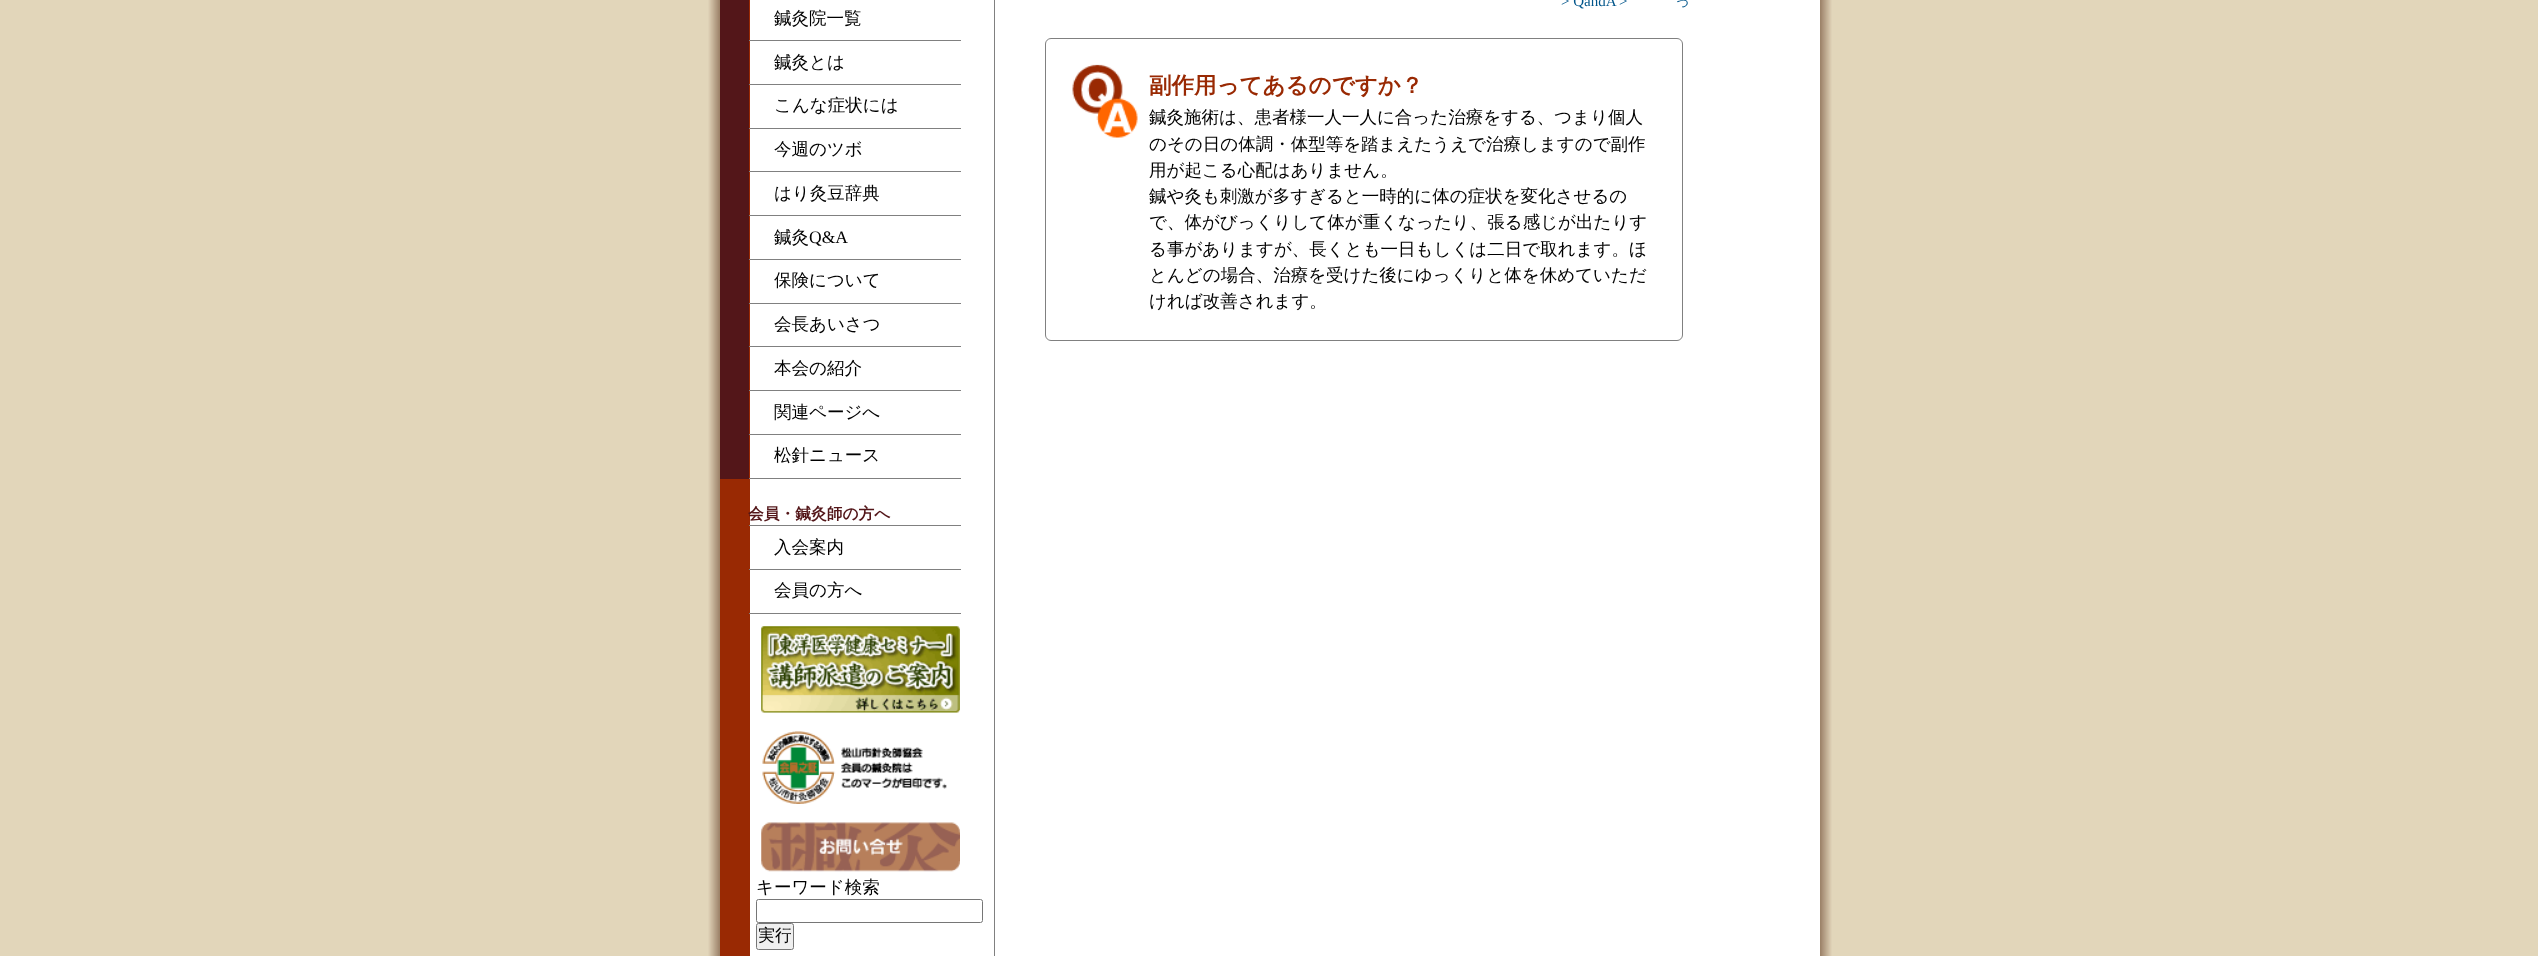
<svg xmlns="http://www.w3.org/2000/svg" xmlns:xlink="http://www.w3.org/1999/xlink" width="2538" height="956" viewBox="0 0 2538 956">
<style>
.cls-1{font:500 17.5px WenQuanYi Zen Hei;fill:#000000}
.cls-2{font:17.5px Liberation Serif;fill:#000000}
.cls-3{font:bold 15.75px WenQuanYi Zen Hei;fill:#531619}
.cls-4{font:500 17px WenQuanYi Zen Hei;fill:#000000}
.cls-5{font:15px Liberation Serif;fill:#00558a}
.cls-6{font:500 15px WenQuanYi Zen Hei;fill:#00558a}
.cls-7{font:bold 22.5px WenQuanYi Zen Hei;fill:#992903}
</style>
<defs>
<clipPath id="clip1"><rect x="759" y="925" width="32" height="23"/></clipPath>
</defs>
<rect width="100%" height="100%" fill="#e2d6ba"/>
<image xlink:href="image0.png" x="708" y="0" width="1124" height="956"/>
<rect fill="#ffffff" x="750" y="0" width="1070" height="956"/>
<rect fill="#992903" x="720" y="0" width="30" height="956"/>
<rect fill="#531619" x="720" y="0" width="29" height="479"/>
<rect fill="#808080" x="749" y="40" width="212" height="1"/>
<rect fill="#808080" x="749" y="84" width="212" height="1"/>
<rect fill="#808080" x="749" y="128" width="212" height="1"/>
<rect fill="#808080" x="749" y="171" width="212" height="1"/>
<rect fill="#808080" x="749" y="215" width="212" height="1"/>
<rect fill="#808080" x="749" y="259" width="212" height="1"/>
<rect fill="#808080" x="749" y="303" width="212" height="1"/>
<rect fill="#808080" x="749" y="346" width="212" height="1"/>
<rect fill="#808080" x="749" y="390" width="212" height="1"/>
<rect fill="#808080" x="749" y="434" width="212" height="1"/>
<rect fill="#808080" x="749" y="478" width="212" height="1"/>
<rect fill="#808080" x="749" y="525" width="212" height="1"/>
<rect fill="#808080" x="749" y="569" width="212" height="1"/>
<rect fill="#808080" x="749" y="613" width="212" height="1"/>
<image xlink:href="image1.png" x="761" y="626" width="199" height="87"/>
<image xlink:href="image2.png" x="762" y="731" width="185" height="73"/>
<image xlink:href="image3.png" x="761" y="822" width="199" height="50"/>
<rect fill="none" stroke="#767676" x="756.5" y="899.5" width="226" height="23" rx="2"/>
<rect fill="#efefef" stroke="#767676" x="756.5" y="923.5" width="37" height="26" rx="2"/>
<rect fill="#808080" x="994" y="0" width="1" height="956"/>
<rect fill="none" stroke="#808080" x="1045.5" y="38.5" width="637" height="302" rx="5.5"/>
<image xlink:href="image4.png" x="1072" y="64" width="66" height="74"/>
<text class="cls-1" x="774" y="24">鍼灸院一覧</text>
<text class="cls-1" x="774" y="68">鍼灸とは</text>
<text class="cls-1" x="774" y="111">こんな症状には</text>
<text class="cls-1" x="774" y="155">今週のツボ</text>
<text class="cls-1" x="774" y="199">はり灸豆辞典</text>
<text class="cls-1" x="774" y="243">鍼灸</text>
<text class="cls-2" x="809" y="243">Q&amp;A</text>
<text class="cls-1" x="774" y="286">保険について</text>
<text class="cls-1" x="774" y="330">会長あいさつ</text>
<text class="cls-1" x="774" y="374">本会の紹介</text>
<text class="cls-1" x="774" y="418">関連ページへ</text>
<text class="cls-1" x="774" y="461">松針ニュース</text>
<text class="cls-3" x="748" y="519">会員・鍼灸師の方へ</text>
<text class="cls-1" x="774" y="553">入会案内</text>
<text class="cls-1" x="774" y="596">会員の方へ</text>
<text class="cls-1" x="756" y="893">キーワード検索</text>
<g clip-path="url(#clip1)">
<text class="cls-4" x="758" y="941">実行</text>
</g>
<text class="cls-5" x="1561" y="6">&gt; QandA</text>
<text class="cls-5" x="1619" y="6">&gt;</text>
<text class="cls-6" x="1675" y="6">っ</text>
<text class="cls-7" x="1149" y="93">副作用ってあるのですか？</text>
<text class="cls-1"><tspan x="1149" y="123">鍼灸施術は、患者様一人一人に合った治療をする、つまり個人</tspan><tspan x="1149" y="150">のその日の体調・体型等を踏まえたうえで治療しますので副作</tspan><tspan x="1149" y="176">用が起こる心配はありません。</tspan><tspan x="1149" y="202">鍼や灸も刺激が多すぎると一時的に体の症状を変化させるの</tspan><tspan x="1149" y="228">で、体がびっくりして体が重くなったり、張る感じが出たりす</tspan><tspan x="1149" y="255">る事がありますが、長くとも一日もしくは二日で取れます。ほ</tspan><tspan x="1149" y="281">とんどの場合、治療を受けた後にゆっくりと体を休めていただ</tspan><tspan x="1149" y="307">ければ改善されます。</tspan></text>
</svg>
